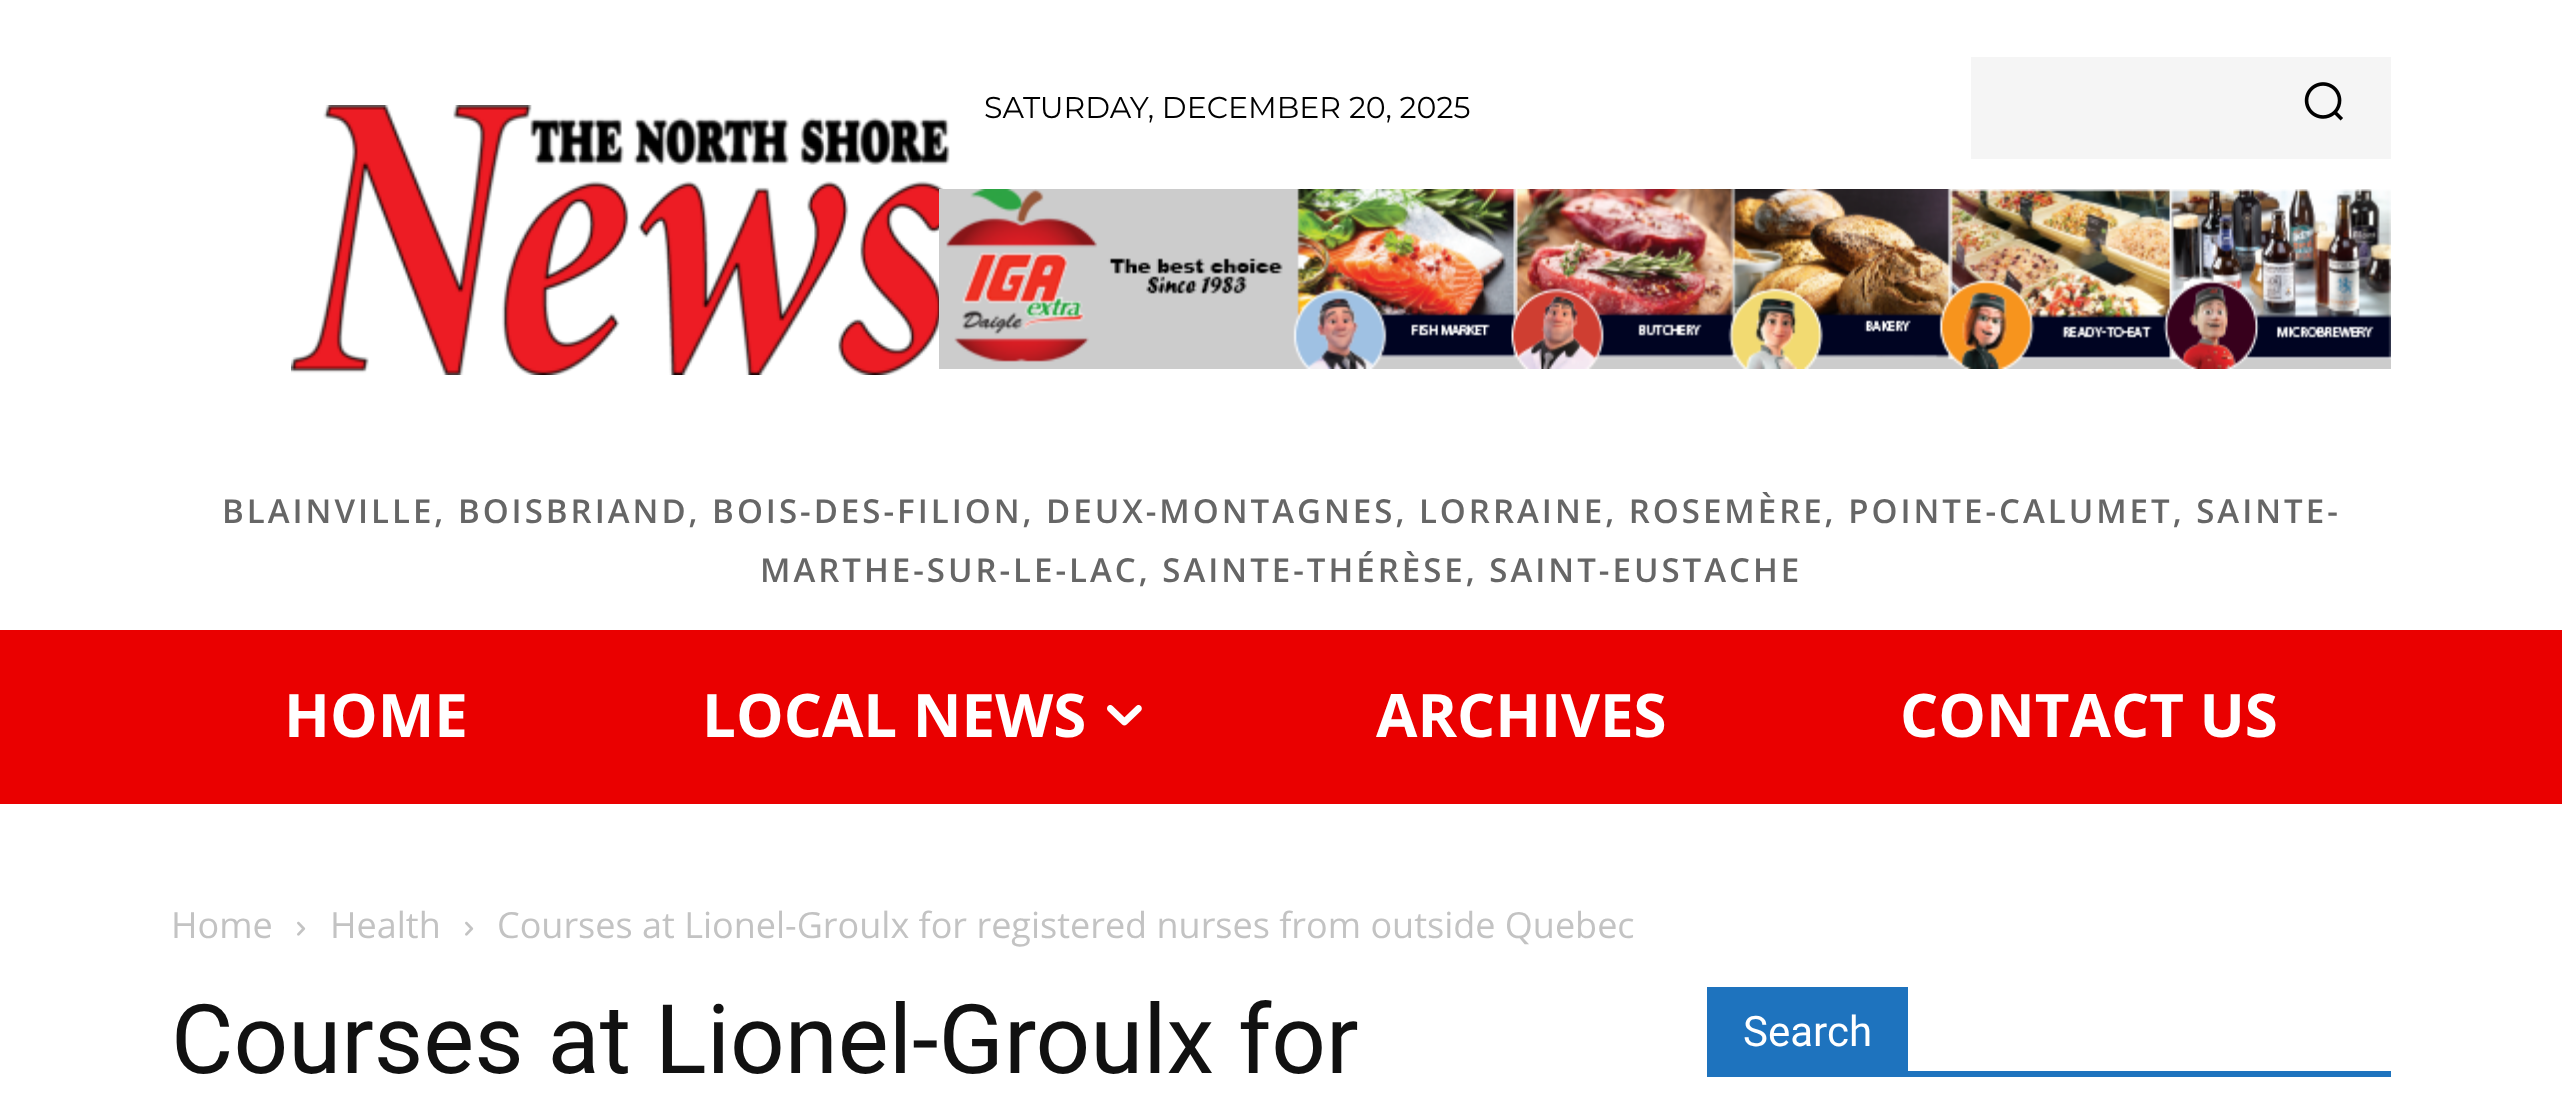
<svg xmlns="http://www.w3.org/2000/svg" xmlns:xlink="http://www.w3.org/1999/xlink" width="2562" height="1114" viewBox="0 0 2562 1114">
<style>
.cls-1{font:30px Montserrat;fill:#000000}
.cls-2{font:600 33px Open Sans;letter-spacing:3px;fill:#666666}
.cls-3{font:bold 60px Open Sans;fill:#ffffff}
.cls-4{font:36px Open Sans;fill:#c3c3c3}
.cls-5{font:96px Roboto;fill:#111111}
.cls-6{font:42px Roboto;fill:#ffffff}
</style>
<rect width="100%" height="100%" fill="#ffffff"/>
<image xlink:href="image0.png" x="291" y="105" width="659" height="270"/>
<rect fill="#f5f5f5" x="1971" y="57" width="420" height="102"/>
<image xlink:href="image1.png" x="2304" y="82" width="39" height="39"/>
<image xlink:href="image2.png" x="939" y="189" width="1452" height="180"/>
<rect fill="#ea0000" x="0" y="630" width="2562" height="174"/>
<image xlink:href="image3.png" x="1107" y="704" width="35" height="22"/>
<image xlink:href="image4.png" x="297" y="921" width="9" height="15"/>
<image xlink:href="image4.png" x="465" y="921" width="9" height="15"/>
<rect fill="#1e73be" x="1707" y="1071" width="684" height="6"/>
<rect fill="#1e73be" x="1707" y="987" width="201" height="84"/>
<text class="cls-1" x="984" y="118">SATURDAY, DECEMBER 20, 2025</text>
<text class="cls-2" x="222" y="523">BLAINVILLE, BOISBRIAND, BOIS-DES-FILION, DEUX-MONTAGNES, LORRAINE, ROSEMÈRE, POINTE-CALUMET, SAINTE-</text>
<text class="cls-2" x="760" y="582">MARTHE-SUR-LE-LAC, SAINTE-THÉRÈSE, SAINT-EUSTACHE</text>
<text class="cls-3" x="284" y="737">HOME</text>
<text class="cls-3" x="702" y="737">LOCAL NEWS</text>
<text class="cls-3" x="1376" y="737">ARCHIVES</text>
<text class="cls-3" x="1900" y="737">CONTACT US</text>
<text class="cls-4" x="171" y="938">Home</text>
<text class="cls-4" x="330" y="938">Health</text>
<text class="cls-4" x="497" y="938">Courses at Lionel-Groulx for registered nurses from outside Quebec</text>
<text class="cls-5" x="171" y="1073">Courses at Lionel-Groulx for</text>
<text class="cls-6" x="1743" y="1046">Search</text>
</svg>
